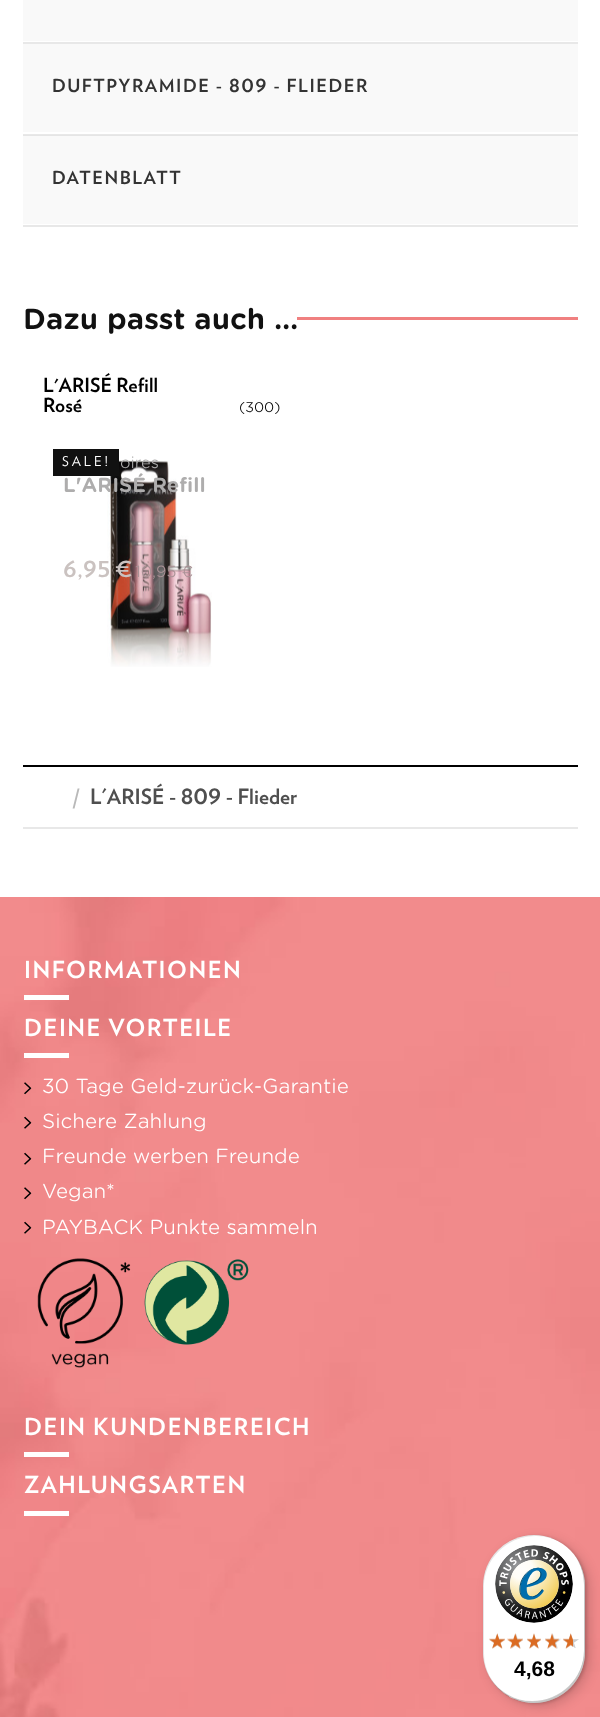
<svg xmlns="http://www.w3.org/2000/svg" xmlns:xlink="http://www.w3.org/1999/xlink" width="600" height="1717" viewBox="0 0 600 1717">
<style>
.cls-1{font:18px 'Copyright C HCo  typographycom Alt';letter-spacing:1.5px;fill:#333333}
.cls-2{font:18px 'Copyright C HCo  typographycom';letter-spacing:1.5px;fill:#333333}
.cls-3{font:27.9px 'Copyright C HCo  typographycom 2';fill:#111111}
.cls-4{font:19.5px 'Copyright C HCo  typographycom';fill:#000000}
.cls-5{font:300 13.5px 'Copyright C HCo  typographycom';fill:#000000}
.cls-6{font:300 15.5px 'Copyright C HCo  typographycom';fill:#aeadad}
.cls-7{font:19.5px 'Copyright C HCo  typographycom 2';fill:#aeadad}
.cls-8{font:300 13.5px 'Copyright C HCo  typographycom 2';letter-spacing:3px;fill:#ffffff}
.cls-9{font:22px 'Copyright C HCo  typographycom Alt';letter-spacing:0.5px;fill:#cac2c0}
.cls-10{font:300 15.5px 'Copyright C HCo  typographycom';fill:#aa9296}
.cls-11{font:21px 'Copyright C HCo  typographycom';fill:#b9b9b9}
.cls-12{font:21px 'Copyright C HCo  typographycom Alt';fill:#4f4f4f}
.cls-13{font:23.4px 'Copyright C HCo  typographycom';letter-spacing:1.5px;fill:#ffffff}
.cls-14{font:300 19.5px 'Copyright C HCo  typographycom';fill:#ffffff}
.cls-15{font:bold 21px Liberation Sans;fill:#000000}
</style>
<rect width="100%" height="100%" fill="#ffffff"/>
<rect fill="#f9f9f9" x="23" y="136" width="555" height="88"/>
<rect fill="#e8e8e8" x="23" y="42" width="555" height="2"/>
<rect fill="#f9f9f9" x="23" y="0" width="555" height="41"/>
<rect fill="#e8e8e8" x="23" y="134" width="555" height="1"/>
<rect fill="#e5e5e5" x="23" y="135" width="555" height="1"/>
<rect fill="#f9f9f9" x="23" y="44" width="555" height="88"/>
<rect fill="#e8e8e8" x="23" y="225" width="555" height="2"/>
<rect fill="#f08080" x="297" y="317" width="281" height="3"/>
<image xlink:href="image0.png" x="107" y="460" width="105" height="207"/>
<rect fill="#000000" x="23" y="765" width="555" height="2"/>
<rect fill="#e8e8e8" x="23" y="827" width="555" height="2"/>
<image xlink:href="image1.png" x="0" y="897" width="600" height="820"/>
<rect fill="#ffffff" x="24" y="995" width="45" height="5"/>
<rect fill="#ffffff" x="24" y="1053" width="45" height="5"/>
<image xlink:href="image2.png" x="24" y="1082" width="8" height="13"/>
<image xlink:href="image3.png" x="24" y="1116" width="8" height="13"/>
<image xlink:href="image3.png" x="24" y="1152" width="8" height="13"/>
<image xlink:href="image4.png" x="24" y="1187" width="8" height="13"/>
<image xlink:href="image3.png" x="24" y="1221" width="8" height="13"/>
<image xlink:href="image5.png" x="37" y="1258" width="94" height="110"/>
<image xlink:href="image6.png" x="144" y="1259" width="105" height="86"/>
<rect fill="#ffffff" x="24" y="1452" width="45" height="5"/>
<rect fill="#ffffff" x="24" y="1511" width="45" height="5"/>
<rect fill="#000000" fill-opacity="0.15" filter="blur(6px)" x="488" y="1539" width="102" height="168" rx="51"/>
<rect fill="#000000" fill-opacity="0.15" filter="blur(1.5px)" x="485" y="1536" width="102" height="168" rx="51"/>
<rect fill="#ffffff" x="483" y="1535" width="102" height="168" rx="51"/>
<path fill="#000000" fill-opacity="0.1" d="M536 1536C546 1536 554 1539 562 1543C554 1538 544 1535 534 1535C506 1535 483 1558 483 1586V1652C483 1669 491 1684 504 1693C492 1684 484 1669 484 1653V1587C484 1559 507 1536 536 1536Z"/>
<path fill="#000000" fill-opacity="0.2" d="M490 1677C498 1693 515 1703 534 1703C562 1703 585 1680 585 1652V1586C585 1577 583 1568 578 1561C582 1568 584 1576 584 1584V1650C584 1678 561 1701 532 1701C514 1701 498 1691 490 1677Z"/>
<path fill="#323232" fill-opacity="0.2" d="M495 1685C505 1696 519 1703 534 1703C562 1703 585 1680 585 1652V1586C585 1574 581 1563 574 1554C580 1563 584 1573 584 1585V1651C584 1679 561 1702 533 1702C518 1702 505 1696 495 1685Z"/>
<path fill="#ffffff" fill-opacity="0.3" d="M495 1685C505 1696 519 1703 534 1703C562 1703 585 1680 585 1652V1586C585 1571 578 1557 567 1547C578 1557 584 1570 584 1585V1651C584 1679 561 1702 533 1702C518 1702 505 1696 495 1685Z"/>
<image xlink:href="image7.png" x="495" y="1545" width="78" height="78"/>
<image xlink:href="image8.png" x="489" y="1634" width="16" height="14"/>
<image xlink:href="image9.png" x="509" y="1634" width="14" height="15"/>
<image xlink:href="image10.png" x="527" y="1634" width="14" height="14"/>
<image xlink:href="image11.png" x="545" y="1633" width="16" height="16"/>
<image xlink:href="image12.png" x="563" y="1634" width="16" height="14"/>
<image xlink:href="image13.png" x="489" y="1633" width="16" height="16"/>
<image xlink:href="image14.png" x="507" y="1633" width="16" height="16"/>
<image xlink:href="image15.png" x="527" y="1633" width="14" height="16"/>
<image xlink:href="image16.png" x="545" y="1633" width="14" height="16"/>
<image xlink:href="image17.png" x="563" y="1633" width="10" height="16"/>
<text class="cls-1" x="52" y="92">DUFTPYRAMIDE - 809 - FLIEDER</text>
<text class="cls-2" x="52" y="184">DATENBLATT</text>
<text class="cls-3" x="23" y="329">Dazu passt auch …</text>
<text class="cls-4"><tspan x="43" y="392">L'ARISÉ Refill</tspan><tspan x="43" y="412">Rosé</tspan></text>
<text class="cls-5" x="239" y="412">(300)</text>
<text class="cls-6" x="120" y="468">oires</text>
<text class="cls-7" x="63" y="492">L'ARISÉ Refill</text>
<rect fill="#111111" x="53" y="449" width="66" height="27"/>
<text class="cls-8" x="62" y="466">SALE!</text>
<text class="cls-9" x="63" y="577">6,95</text>
<text class="cls-9" x="115" y="577">€</text>
<text class="cls-10" x="135" y="577">10,95 €</text>
<text class="cls-11" x="72" y="804">/</text>
<text class="cls-12" x="90" y="804">L'ARISÉ - 809 - Flieder</text>
<text class="cls-13" x="24" y="978">INFORMATIONEN</text>
<text class="cls-13" x="24" y="1036">DEINE VORTEILE</text>
<text class="cls-14"><tspan x="42" y="1093">30 Tage Geld-zurück-Garantie</tspan><tspan x="42" y="1128">Sichere Zahlung</tspan><tspan x="42" y="1163">Freunde werben Freunde</tspan><tspan x="42" y="1198">Vegan*</tspan><tspan x="42" y="1234">PAYBACK Punkte sammeln</tspan></text>
<text class="cls-13" x="24" y="1435">DEIN KUNDENBEREICH</text>
<text class="cls-13" x="24" y="1493">ZAHLUNGSARTEN</text>
<text class="cls-15" x="514" y="1676">4,68</text>
</svg>
